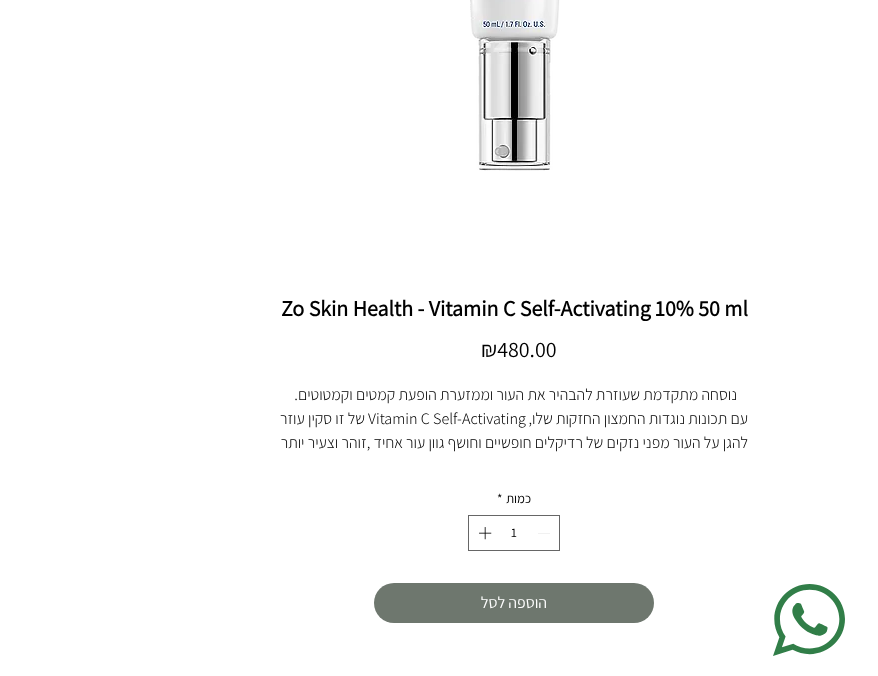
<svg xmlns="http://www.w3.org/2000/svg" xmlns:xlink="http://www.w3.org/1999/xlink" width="878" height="676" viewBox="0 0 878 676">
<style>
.cls-1{font:bold 22px Assistant;fill:#000000}
.cls-2{font:22px Assistant;fill:#000000}
.cls-3{font:300 16px Assistant;direction:rtl;fill:#000000}
.cls-4{font:300 16px Assistant;fill:#000000}
.cls-5{font:13px Assistant;direction:rtl;fill:#000000}
.cls-6{font:13px Assistant;fill:#000000}
.cls-7{font:16px Assistant;direction:rtl;fill:#ffffff}
</style>
<rect width="100%" height="100%" fill="#ffffff"/>
<image xlink:href="image0.png" x="470" y="0" width="90" height="171"/>
<rect fill="none" stroke="#666666" x="468.5" y="515.5" width="91" height="35"/>
<path fill="#e3e3e3" fill-rule="evenodd" d="M550 533V533.5H538V533Z"/>
<image xlink:href="image1.png" x="479" y="527" width="13" height="13"/>
<rect fill="#6e776e" x="374" y="583" width="280" height="40" rx="20"/>
<image xlink:href="image2.png" x="773" y="584" width="72" height="72"/>
<text class="cls-1" x="281" y="316">Zo Skin Health - Vitamin C Self-Activating 10% 50 ml</text>
<text class="cls-2" x="481" y="357">₪480.00</text>
<text class="cls-3" x="737" y="400">נוסחה מתקדמת שעוזרת להבהיר את העור וממזערת הופעת קמטים וקמטוטים.</text>
<text class="cls-3" x="748" y="424">עם תכונות נוגדות החמצון החזקות שלו,</text>
<text class="cls-4" x="368" y="424">Vitamin C Self-Activating</text>
<text class="cls-3" x="365" y="424">של זו סקין עוזר</text>
<text class="cls-3" x="748" y="448">להגן על העור מפני נזקים של רדיקלים חופשיים וחושף גוון עור אחיד ,זוהר וצעיר יותר</text>
<text class="cls-5" x="531" y="503">כמות</text>
<text class="cls-6" x="497" y="503">*</text>
<text class="cls-6" x="511" y="537">1</text>
<text class="cls-7" x="547" y="608">הוספה לסל</text>
</svg>
